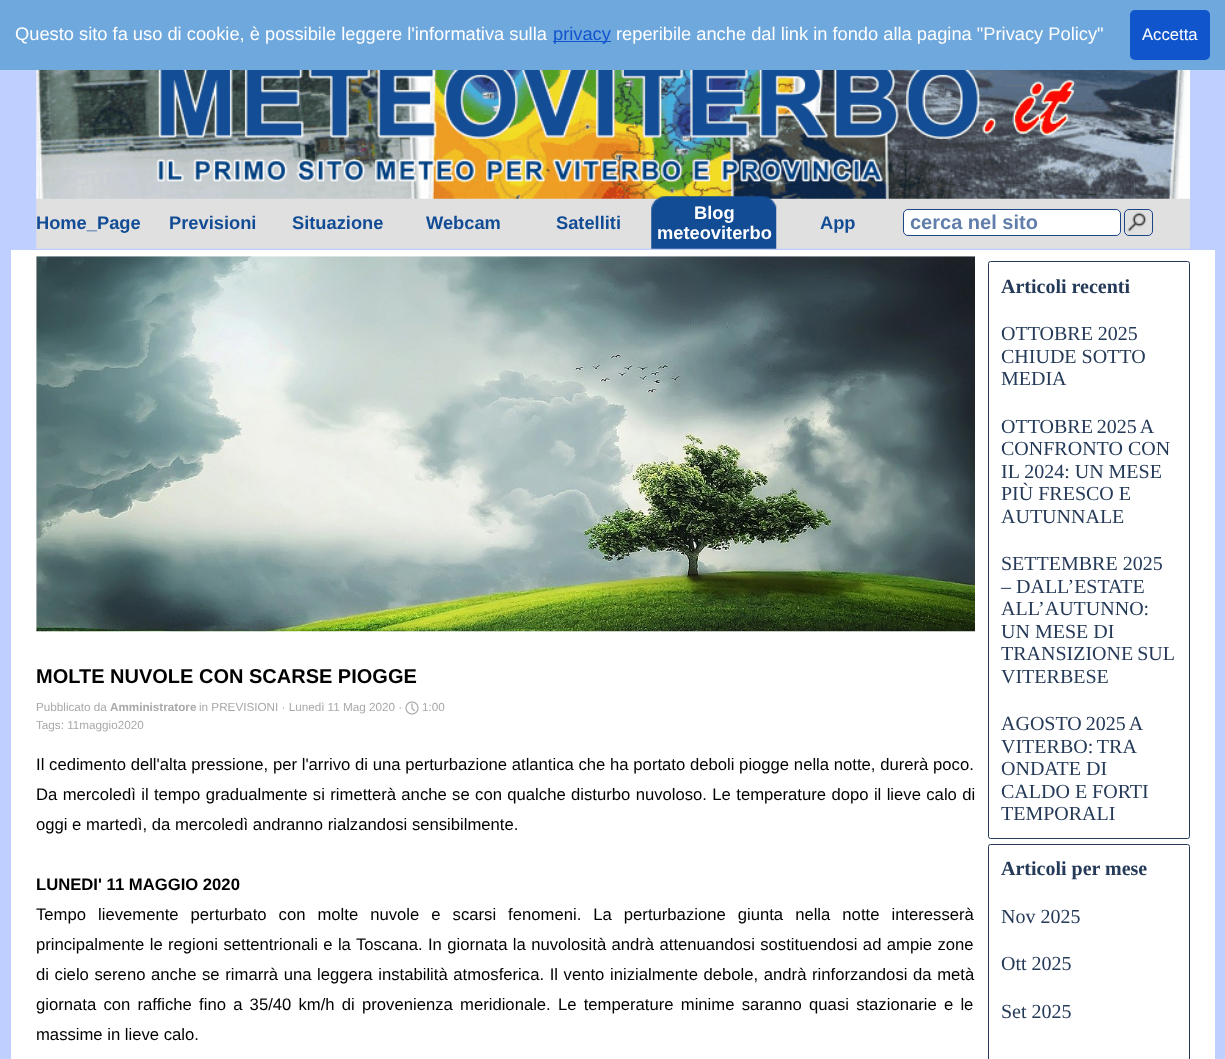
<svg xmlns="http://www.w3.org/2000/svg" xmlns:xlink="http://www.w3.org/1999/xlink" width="1225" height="1059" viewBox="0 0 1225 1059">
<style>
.cls-1{font:18.3px Liberation Sans;fill:#ffffff}
.cls-2{font:18.3px Liberation Sans;fill:#1155cc}
.cls-3{font:16.67px Liberation Sans;fill:#ffffff}
.cls-4{font:bold 18.3px Liberation Sans;fill:#124c95}
.cls-5{font:bold 18.3px Liberation Sans;fill:#ffffff}
.cls-6{font:bold 20px Liberation Sans;fill:#607dab}
.cls-7{font:bold 20px Liberation Sans;fill:#000000}
.cls-8{font:11.7px Liberation Sans;fill:#a9a9a9}
.cls-9{font:bold 11.7px Liberation Sans;fill:#a9a9a9}
.cls-10{font:16.67px Liberation Sans;fill:#000000}
.cls-11{font:bold 16.67px Liberation Sans;fill:#000000}
.cls-12{font:bold 20px Liberation Serif;fill:#253a58}
.cls-13{font:20px Liberation Serif;fill:#253a58}
</style>
<rect width="100%" height="100%" fill="#bfcfff"/>
<rect fill="#6fa8dc" x="0" y="0" width="1225" height="70"/>
<rect fill="#1155cc" x="553" y="41" width="58" height="1"/>
<rect fill="#1155cc" x="1130" y="10" width="80" height="50" rx="5"/>
<image xlink:href="image0.png" x="36" y="70" width="1154" height="179"/>
<image xlink:href="image1.png" x="651" y="196" width="126" height="53"/>
<rect fill="#ffffff" stroke="#1c4587" x="903.5" y="209.5" width="217" height="26" rx="4.5"/>
<image xlink:href="image2.png" x="1127" y="212" width="20" height="20"/>
<rect fill="none" stroke="#1c4587" x="1124.5" y="209.5" width="28" height="26" rx="4.5"/>
<rect fill="#ffffff" x="11" y="250" width="1204" height="809"/>
<image xlink:href="image3.png" x="36" y="256" width="939" height="376"/>
<image xlink:href="image4.png" x="405" y="701" width="14" height="14"/>
<rect fill="none" stroke="#253a58" x="988.5" y="261.5" width="201" height="577" rx="2"/>
<rect fill="none" stroke="#253a58" x="988.5" y="844.5" width="201" height="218" rx="2"/>
<text class="cls-1" x="15" y="40">Questo sito fa uso di cookie, è possibile leggere l'informativa sulla</text>
<text class="cls-2" x="553" y="40">privacy</text>
<text class="cls-1" x="616" y="40">reperibile anche dal link in fondo alla pagina "Privacy Policy"</text>
<text class="cls-3" x="1142" y="40">Accetta</text>
<text class="cls-4" x="36" y="229">Home_Page</text>
<text class="cls-4" x="169" y="229">Previsioni</text>
<text class="cls-4" x="292" y="229">Situazione</text>
<text class="cls-4" x="426" y="229">Webcam</text>
<text class="cls-4" x="556" y="229">Satelliti</text>
<text class="cls-5" x="694" y="219">Blog</text>
<text class="cls-5" x="657" y="239">meteoviterbo</text>
<text class="cls-4" x="820" y="229">App</text>
<text class="cls-6" x="910" y="229">cerca nel sito</text>
<text class="cls-7" x="36" y="683">MOLTE NUVOLE CON SCARSE PIOGGE</text>
<text class="cls-8" x="36" y="711">Pubblicato da</text>
<text class="cls-9" x="110" y="711">Amministratore</text>
<text class="cls-8" x="199" y="711">in PREVISIONI · Lunedì 11 Mag 2020 ·</text>
<text class="cls-8" x="422" y="711">1:00</text>
<text class="cls-8" x="36" y="729">Tags: 11maggio2020</text>
<text class="cls-10"><tspan x="36" y="770" word-spacing="0.1">Il cedimento dell'alta pressione, per l'arrivo di una perturbazione atlantica che ha portato deboli piogge nella notte, durerà poco.</tspan><tspan x="36" y="800" word-spacing="0.75">Da mercoledì il tempo gradualmente si rimetterà anche se con qualche disturbo nuvoloso. Le temperature dopo il lieve calo di</tspan><tspan x="36" y="830">oggi e martedì, da mercoledì andranno rialzandosi sensibilmente.</tspan></text>
<text class="cls-11" x="36" y="890">LUNEDI' 11 MAGGIO 2020</text>
<text class="cls-10"><tspan x="36" y="920" word-spacing="7.4">Tempo lievemente perturbato con molte nuvole e scarsi fenomeni. La perturbazione giunta nella notte interesserà</tspan><tspan x="36" y="950" word-spacing="0.75">principalmente le regioni settentrionali e la Toscana. In giornata la nuvolosità andrà attenuandosi sostituendosi ad ampie zone</tspan><tspan x="36" y="980" word-spacing="1">di cielo sereno anche se rimarrà una leggera instabilità atmosferica. Il vento inizialmente debole, andrà rinforzandosi da metà</tspan><tspan x="36" y="1010" word-spacing="2.6">giornata con raffiche fino a 35/40 km/h di provenienza meridionale. Le temperature minime saranno quasi stazionarie e le</tspan><tspan x="36" y="1040">massime in lieve calo.</tspan></text>
<text class="cls-12" x="1001" y="293">Articoli recenti</text>
<text class="cls-13"><tspan x="1001" y="340">OTTOBRE 2025</tspan><tspan x="1001" y="363">CHIUDE SOTTO</tspan><tspan x="1001" y="385">MEDIA</tspan></text>
<text class="cls-13"><tspan x="1001" y="433" word-spacing="-1">OTTOBRE 2025 A</tspan><tspan x="1001" y="455">CONFRONTO CON</tspan><tspan x="1001" y="478">IL 2024: UN MESE</tspan><tspan x="1001" y="500">PIÙ FRESCO E</tspan><tspan x="1001" y="523">AUTUNNALE</tspan></text>
<text class="cls-13"><tspan x="1001" y="570">SETTEMBRE 2025</tspan><tspan x="1001" y="593">– DALL’ESTATE</tspan><tspan x="1001" y="615">ALL’AUTUNNO:</tspan><tspan x="1001" y="638">UN MESE DI</tspan><tspan x="1001" y="660" word-spacing="-1">TRANSIZIONE SUL</tspan><tspan x="1001" y="683">VITERBESE</tspan></text>
<text class="cls-13"><tspan x="1001" y="730" word-spacing="-1">AGOSTO 2025 A</tspan><tspan x="1001" y="753" word-spacing="-1">VITERBO: TRA</tspan><tspan x="1001" y="775">ONDATE DI</tspan><tspan x="1001" y="798">CALDO E FORTI</tspan><tspan x="1001" y="820">TEMPORALI</tspan></text>
<text class="cls-12" x="1001" y="875">Articoli per mese</text>
<text class="cls-13" x="1001" y="923">Nov 2025</text>
<text class="cls-13" x="1001" y="970">Ott 2025</text>
<text class="cls-13" x="1001" y="1018">Set 2025</text>
</svg>
